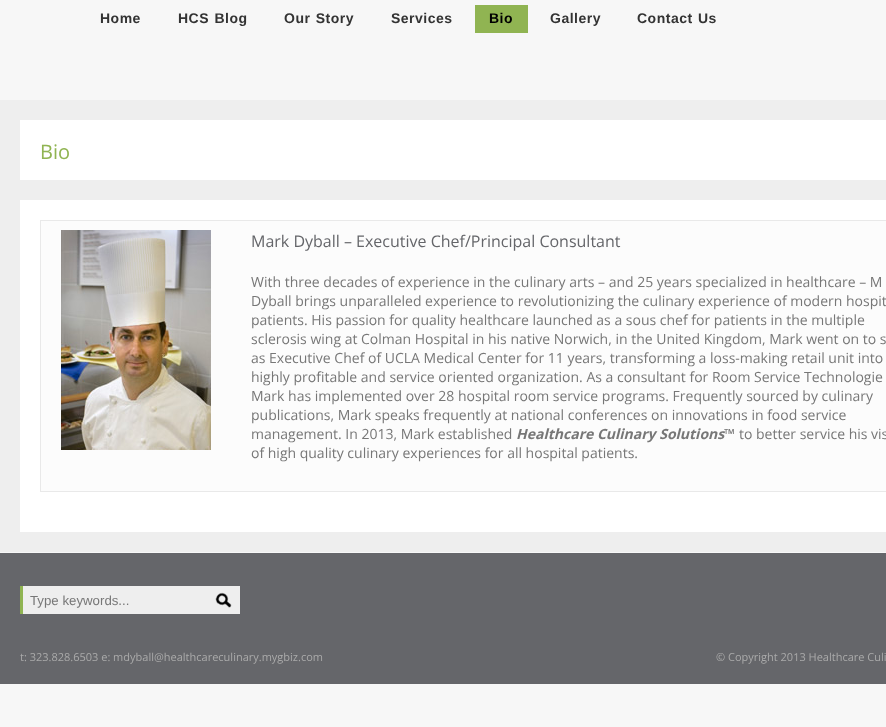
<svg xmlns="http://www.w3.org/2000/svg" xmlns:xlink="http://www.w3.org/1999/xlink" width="886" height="727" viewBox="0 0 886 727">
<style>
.cls-1{font:bold 14px Liberation Sans;letter-spacing:0.5px;fill:#333333}
.cls-2{font:bold 14px Liberation Sans;letter-spacing:0.5px;fill:#000000}
.cls-3{font:20px Open Sans;fill:#90b452}
.cls-4{font:16px Open Sans;fill:#65666a}
.cls-5{font:14px Open Sans;fill:#777777}
.cls-6{font:italic bold 14px Open Sans;fill:#777777}
.cls-7{font:bold 14px Open Sans;fill:#777777}
.cls-8{font:13.25px Liberation Sans;fill:#777777}
.cls-9{font:11px Open Sans;fill:#aaaaaa}
</style>
<rect width="100%" height="100%" fill="#f7f7f7"/>
<rect fill="#90b452" x="475" y="5" width="53" height="28"/>
<rect fill="#eeeeee" x="0" y="100" width="886" height="452"/>
<rect fill="#ffffff" x="20" y="120" width="866" height="60"/>
<rect fill="#ffffff" x="20" y="200" width="866" height="332"/>
<rect fill="#e9e9e9" x="40" y="220" width="846" height="1"/>
<rect fill="#e9e9e9" x="40" y="491" width="846" height="1"/>
<rect fill="#e9e9e9" x="40" y="220" width="1" height="272"/>
<rect fill="#fcfcfc" x="41" y="221" width="845" height="270"/>
<image xlink:href="image0.png" x="61" y="230" width="150" height="220"/>
<rect fill="#65666a" x="0" y="553" width="886" height="131"/>
<rect fill="#eeeeee" x="23" y="586" width="217" height="28"/>
<rect fill="#90b452" x="20" y="586" width="3" height="28"/>
<image xlink:href="image1.png" x="215" y="592" width="17" height="16"/>
<text class="cls-1" x="100" y="23">Home</text>
<text class="cls-1" x="178" y="23" word-spacing="1">HCS Blog</text>
<text class="cls-1" x="284" y="23" word-spacing="1">Our Story</text>
<text class="cls-1" x="391" y="23">Services</text>
<text class="cls-2" x="489" y="23">Bio</text>
<text class="cls-1" x="550" y="23">Gallery</text>
<text class="cls-1" x="637" y="23" word-spacing="1">Contact Us</text>
<text class="cls-3" x="40" y="159">Bio</text>
<text class="cls-4" x="251" y="247">Mark Dyball – Executive Chef/Principal Consultant</text>
<text class="cls-5"><tspan x="251" y="287">With three decades of experience in the culinary arts – and 25 years specialized in healthcare – M</tspan><tspan x="251" y="306">Dyball brings unparalleled experience to revolutionizing the culinary experience of modern hospit</tspan><tspan x="251" y="325">patients. His passion for quality healthcare launched as a sous chef for patients in the multiple</tspan><tspan x="251" y="344">sclerosis wing at Colman Hospital in his native Norwich, in the United Kingdom, Mark went on to s</tspan><tspan x="251" y="363">as Executive Chef of UCLA Medical Center for 11 years, transforming a loss-making retail unit into</tspan><tspan x="251" y="382">highly profitable and service oriented organization. As a consultant for Room Service Technologie</tspan><tspan x="251" y="401">Mark has implemented over 28 hospital room service programs. Frequently sourced by culinary</tspan><tspan x="251" y="420">publications, Mark speaks frequently at national conferences on innovations in food service</tspan><tspan x="251" y="439">management. In 2013, Mark established</tspan></text>
<text class="cls-6" x="516" y="439">Healthcare Culinary Solutions</text>
<text class="cls-7" x="724" y="439">™</text>
<text class="cls-5" x="739" y="439">to better service his vis</text>
<text class="cls-5" x="251" y="458">of high quality culinary experiences for all hospital patients.</text>
<text class="cls-8" x="30" y="605">Type keywords...</text>
<text class="cls-9" x="20" y="661">t: 323.828.6503 e: mdyball@healthcareculinary.mygbiz.com</text>
<text class="cls-9" x="716" y="661">© Copyright 2013 Healthcare Culi</text>
</svg>
